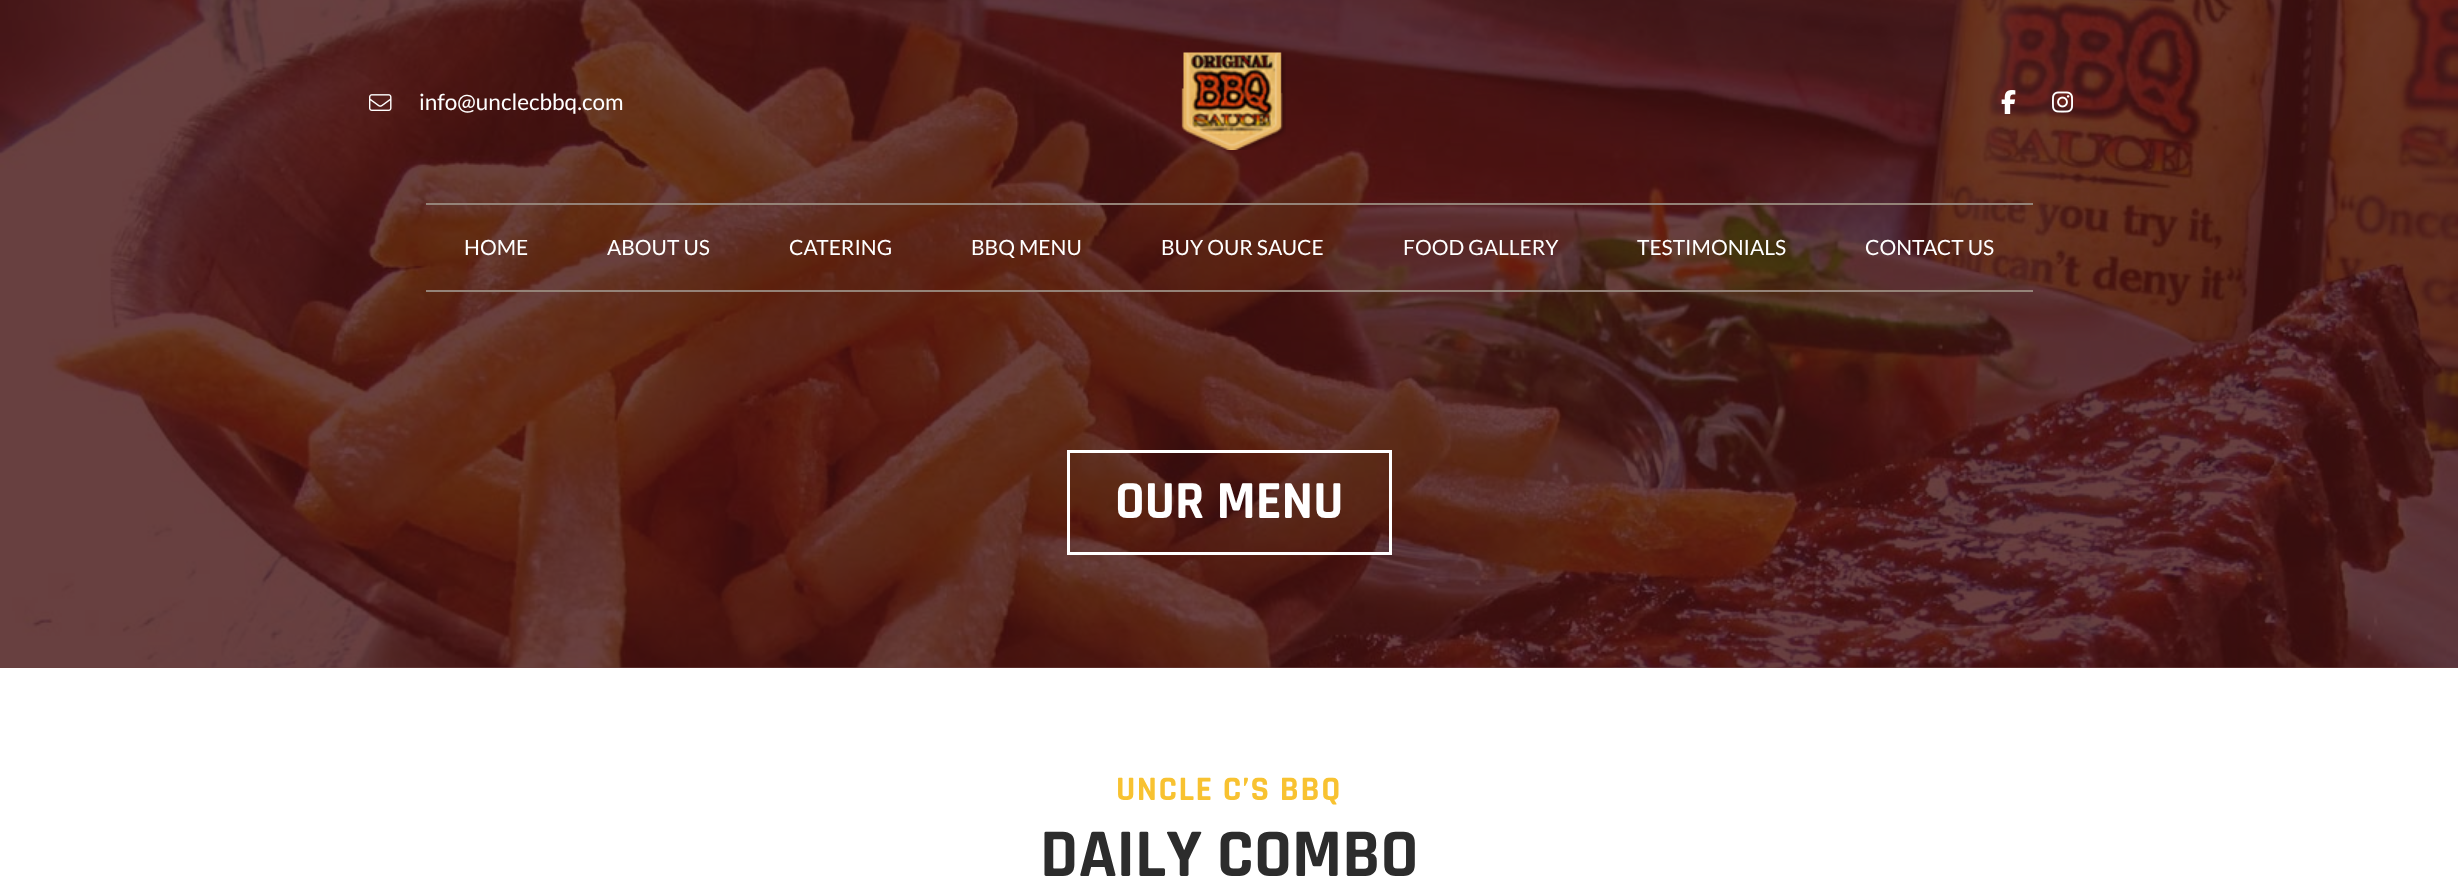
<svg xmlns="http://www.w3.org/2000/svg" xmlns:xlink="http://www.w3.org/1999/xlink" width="2458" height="882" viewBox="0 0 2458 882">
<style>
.cls-1{font:22.5px Lato;fill:#ffffff}
.cls-2{font:21px Lato;fill:#ffffff}
.cls-3{font:bold 54px Rajdhani;fill:#ffffff}
.cls-4{font:bold 34.5px Rajdhani;letter-spacing:1.5px;fill:#f8c231}
.cls-5{font:bold 69px Rajdhani;fill:#2c2c2c}
</style>
<rect width="100%" height="100%" fill="#ffffff"/>
<rect fill="#694040" x="0" y="667" width="2458" height="1"/>
<image xlink:href="image4.png" x="0" y="0" width="2458" height="668"/>
<image xlink:href="image0.png" x="369" y="94" width="23" height="17"/>
<image xlink:href="image1.png" x="1181" y="52" width="105" height="98"/>
<image xlink:href="image2.png" x="2001" y="90" width="15" height="24"/>
<image xlink:href="image3.png" x="2052" y="91" width="21" height="22"/>
<rect fill="#948378" x="426" y="203" width="1607" height="2"/>
<rect fill="#948378" x="426" y="290" width="1607" height="2"/>
<rect fill="none" stroke="#ffffff" stroke-width="3" x="1068.5" y="451.5" width="322" height="102"/>
<text class="cls-1" x="419" y="110">info@unclecbbq.com</text>
<text class="cls-2" x="464" y="255">HOME</text>
<text class="cls-2" x="607" y="255">ABOUT US</text>
<text class="cls-2" x="789" y="255">CATERING</text>
<text class="cls-2" x="971" y="255">BBQ MENU</text>
<text class="cls-2" x="1161" y="255">BUY OUR SAUCE</text>
<text class="cls-2" x="1403" y="255">FOOD GALLERY</text>
<text class="cls-2" x="1637" y="255">TESTIMONIALS</text>
<text class="cls-2" x="1865" y="255">CONTACT US</text>
<text class="cls-3" x="1115" y="518">OUR MENU</text>
<text class="cls-4" x="1116" y="800">UNCLE C’S BBQ</text>
<text class="cls-5" x="1040" y="876">DAILY COMBO</text>
</svg>
